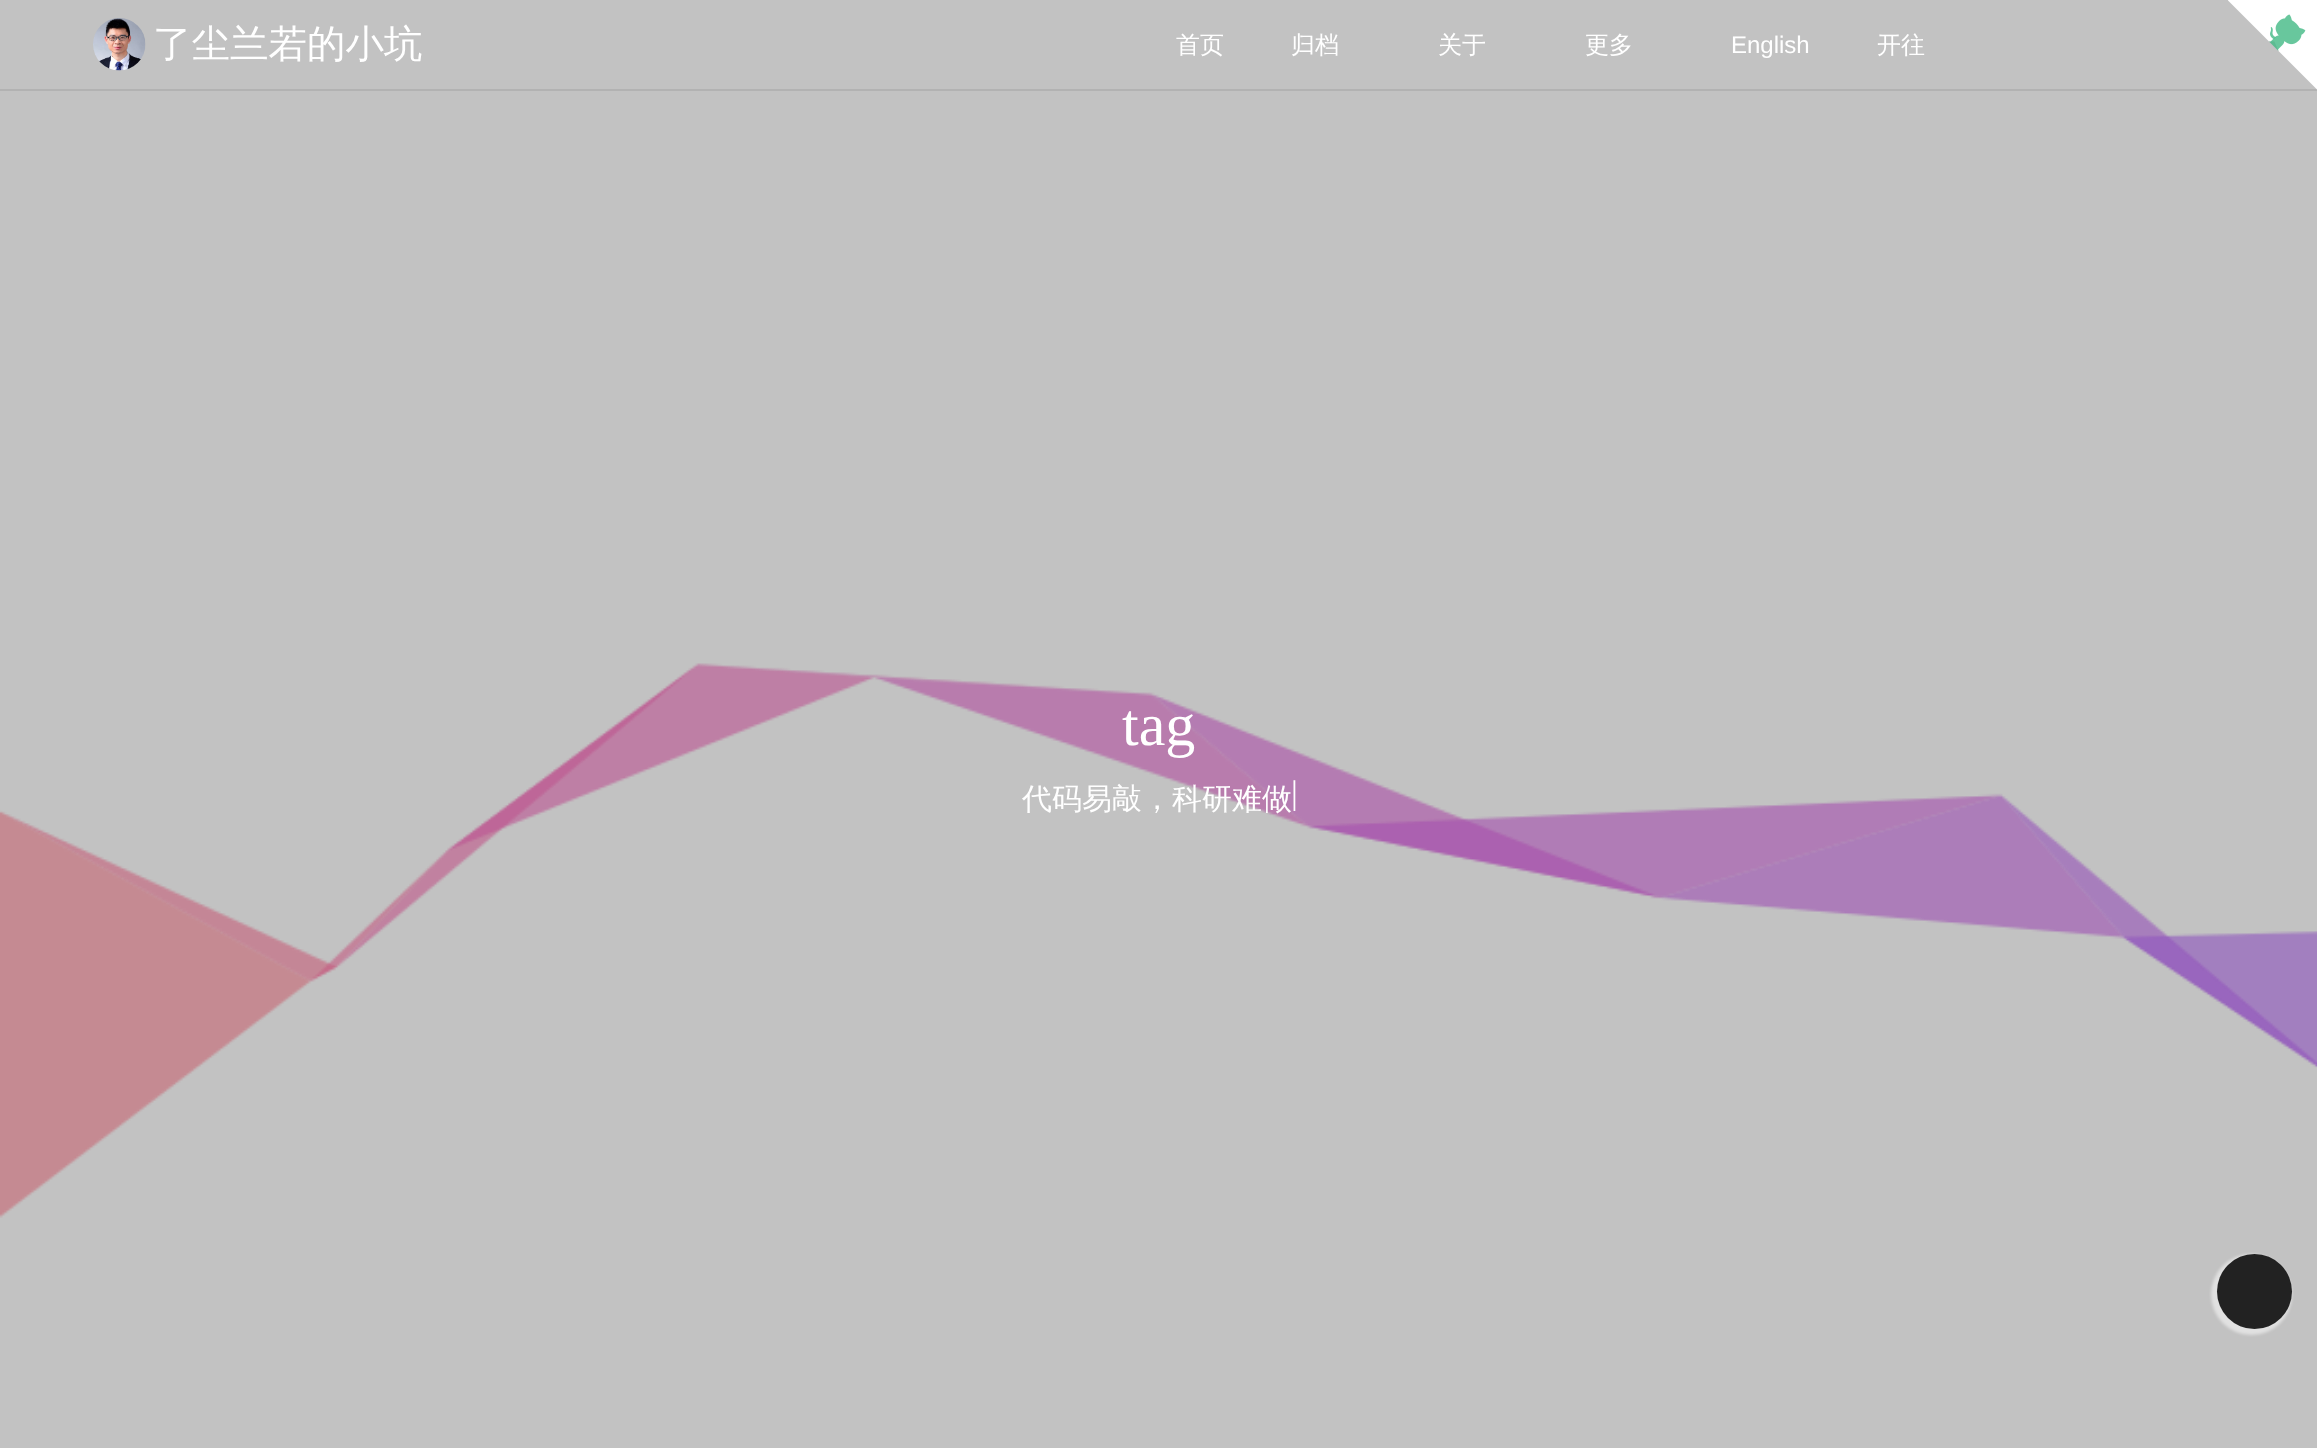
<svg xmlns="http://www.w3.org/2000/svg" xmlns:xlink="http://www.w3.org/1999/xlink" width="2317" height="1448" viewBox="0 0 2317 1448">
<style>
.cls-1{font:500 38.5px WenQuanYi Zen Hei;fill:#ffffff}
.cls-2{font:500 24px WenQuanYi Zen Hei;fill:#ffffff}
.cls-3{font:24px Liberation Sans;fill:#ffffff}
.cls-4{font:60px Liberation Serif;fill:#ffffff}
.cls-5{font:500 30px WenQuanYi Zen Hei;fill:#ffffff}
.cls-6{font:30px Architects Daughter;fill:#ffffff}
</style>
<rect width="100%" height="100%" fill="#c2c2c2"/>
<rect fill="#b2b2b2" x="0" y="89" width="2317" height="2"/>
<image xlink:href="image0.png" x="93" y="18" width="53" height="53"/>
<image xlink:href="image1.png" x="2228" y="0" width="89" height="90"/>
<image xlink:href="image2.png" x="0" y="663" width="2317" height="555"/>
<rect fill="#ffffff" fill-opacity="0.5" filter="blur(1.5px)" x="2211" y="1254" width="81" height="81" rx="40.5"/>
<circle fill="#222222" cx="2254.5" cy="1291.5" r="37.5"/>
<text class="cls-1" x="153" y="57">了尘兰若的小坑</text>
<text class="cls-2" x="1176" y="53">首页</text>
<text class="cls-2" x="1291" y="53">归档</text>
<text class="cls-2" x="1438" y="53">关于</text>
<text class="cls-2" x="1585" y="53">更多</text>
<text class="cls-3" x="1731" y="53">English</text>
<text class="cls-2" x="1877" y="53">开往</text>
<text class="cls-4" x="1122" y="745">tag</text>
<text class="cls-5" x="1022" y="809">代码易敲，科研难做</text>
<text class="cls-6" x="1292" y="809">|</text>
</svg>
